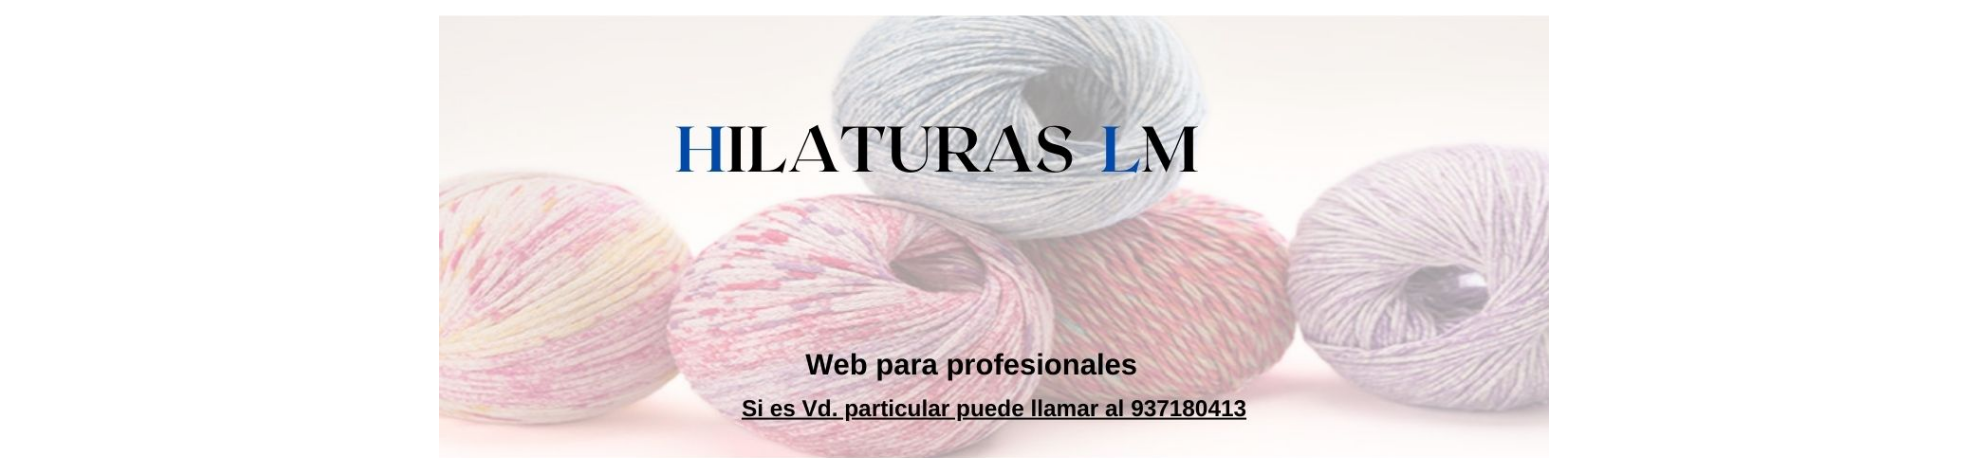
<svg xmlns="http://www.w3.org/2000/svg" xmlns:xlink="http://www.w3.org/1999/xlink" width="1987" height="458" viewBox="0 0 1987 458">
<rect width="100%" height="100%" fill="#ffffff"/>
<image xlink:href="image0.png" x="439" y="15" width="1110" height="443"/>
</svg>
